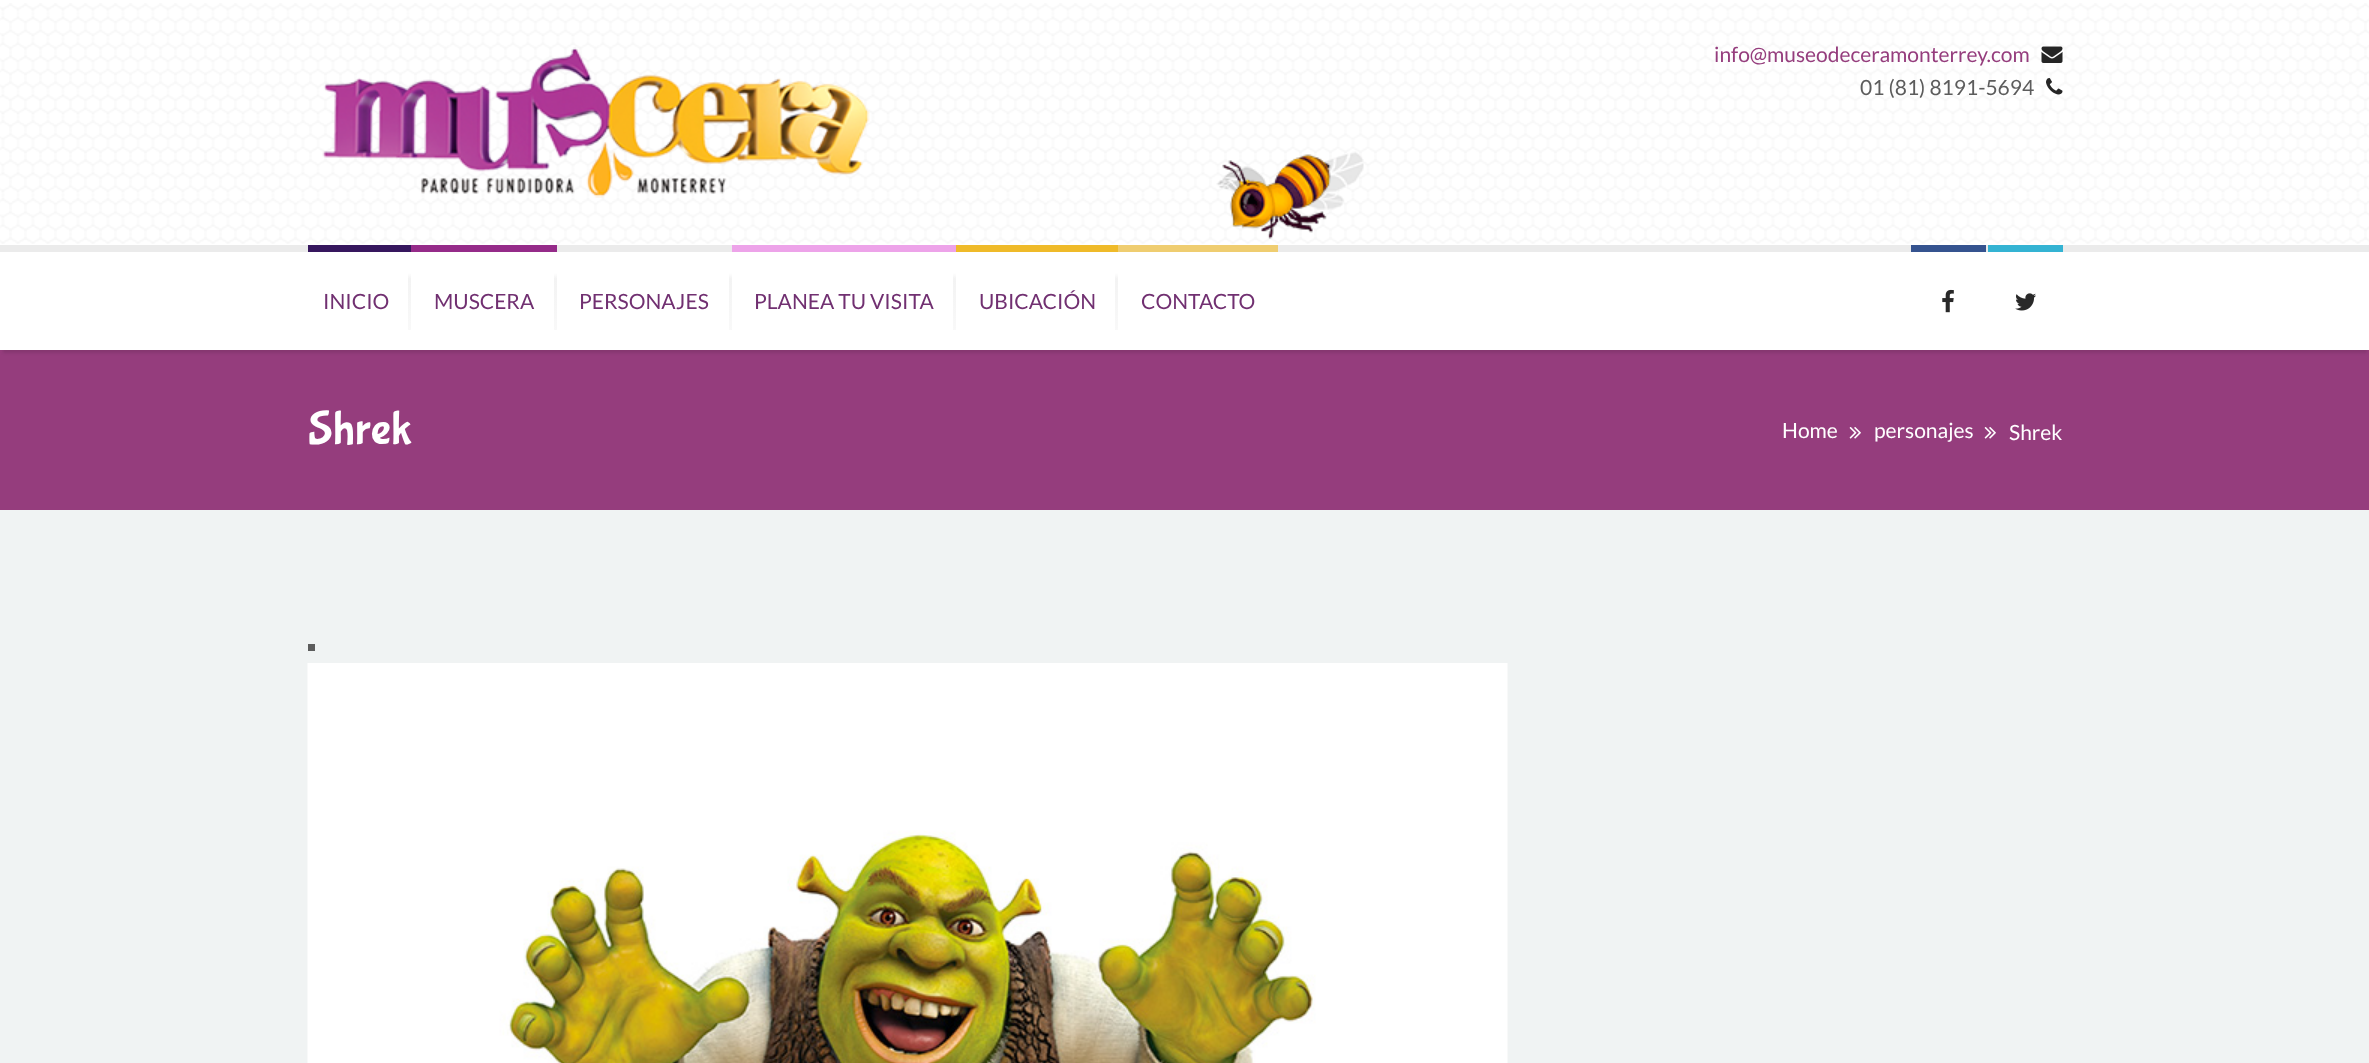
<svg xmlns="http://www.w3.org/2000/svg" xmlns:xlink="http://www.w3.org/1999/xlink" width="2369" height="1063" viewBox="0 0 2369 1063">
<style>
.cls-1{font:21px Lato;fill:#953d7d}
.cls-2{font:21px Lato;fill:#5c5c5c}
.cls-3{font:21px Lato;fill:#713071}
.cls-4{font:48px Bubblegum Sans;fill:#ffffff}
.cls-5{font:21px Lato;fill:#ffffff}
</style>
<defs>
<linearGradient id="g1" gradientUnits="userSpaceOnUse" x1="410" y1="387" x2="410" y2="273"><stop offset="0" stop-color="#ffffff"/><stop offset="0.95" stop-color="#f3f3f3"/><stop offset="1" stop-color="#ffffff"/></linearGradient>
<linearGradient id="g2" gradientUnits="userSpaceOnUse" x1="555" y1="387" x2="555" y2="273"><stop offset="0" stop-color="#ffffff"/><stop offset="0.95" stop-color="#f3f3f3"/><stop offset="1" stop-color="#ffffff"/></linearGradient>
<linearGradient id="g3" gradientUnits="userSpaceOnUse" x1="731" y1="387" x2="731" y2="273"><stop offset="0" stop-color="#ffffff"/><stop offset="0.95" stop-color="#f3f3f3"/><stop offset="1" stop-color="#ffffff"/></linearGradient>
<linearGradient id="g4" gradientUnits="userSpaceOnUse" x1="954" y1="387" x2="954" y2="273"><stop offset="0" stop-color="#ffffff"/><stop offset="0.95" stop-color="#f3f3f3"/><stop offset="1" stop-color="#ffffff"/></linearGradient>
<linearGradient id="g5" gradientUnits="userSpaceOnUse" x1="1116" y1="387" x2="1116" y2="273"><stop offset="0" stop-color="#ffffff"/><stop offset="0.95" stop-color="#f3f3f3"/><stop offset="1" stop-color="#ffffff"/></linearGradient>
</defs>
<rect width="100%" height="100%" fill="#f0f3f3"/>
<rect fill="#ffffff" x="0" y="0" width="2369" height="245"/>
<image xlink:href="image0.png" x="0" y="3" width="2369" height="241"/>
<image xlink:href="image1.png" x="322" y="47" width="548" height="151"/>
<image xlink:href="image2.png" x="1216" y="151" width="148" height="88"/>
<image xlink:href="image3.png" x="2041" y="46" width="22" height="17"/>
<image xlink:href="image4.png" x="2046" y="78" width="17" height="17"/>
<rect fill="#953d7d" x="0" y="350" width="2369" height="160"/>
<rect fill="#000000" fill-opacity="0.1" filter="blur(1.5px)" x="3" y="254" width="2364" height="99"/>
<rect fill="#ffffff" x="0" y="252" width="2369" height="98"/>
<rect fill="#ebebeb" x="0" y="245" width="2369" height="7"/>
<rect fill="#36175e" x="308" y="245" width="103" height="7"/>
<rect fill="url(#g1)" x="408" y="273" width="3" height="57"/>
<rect fill="#952b89" x="411" y="245" width="146" height="7"/>
<rect fill="url(#g2)" x="554" y="273" width="3" height="57"/>
<rect fill="url(#g3)" x="729" y="273" width="3" height="57"/>
<rect fill="#eda3e9" x="732" y="245" width="224" height="7"/>
<rect fill="url(#g4)" x="953" y="273" width="3" height="57"/>
<rect fill="#efba29" x="956" y="245" width="162" height="7"/>
<rect fill="url(#g5)" x="1115" y="273" width="3" height="57"/>
<rect fill="#efcd70" x="1118" y="245" width="160" height="7"/>
<rect fill="#35538f" x="1911" y="245" width="75" height="7"/>
<image xlink:href="image5.png" x="1942" y="289" width="12" height="24"/>
<rect fill="#34b3d3" x="1988" y="245" width="75" height="7"/>
<image xlink:href="image6.png" x="2015" y="293" width="21" height="18"/>
<image xlink:href="image7.png" x="1849" y="427" width="12" height="12"/>
<image xlink:href="image7.png" x="1984" y="427" width="12" height="12"/>
<rect fill="#5c5c5c" x="308" y="644" width="7" height="7"/>
<image xlink:href="image8.png" x="307" y="663" width="1201" height="400"/>
<text class="cls-1" x="1714" y="62">info@museodeceramonterrey.com</text>
<text class="cls-2" x="1860" y="95">01 (81) 8191-5694</text>
<text class="cls-3" x="323" y="309">INICIO</text>
<text class="cls-3" x="434" y="309">MUSCERA</text>
<text class="cls-3" x="579" y="309">PERSONAJES</text>
<text class="cls-3" x="754" y="309">PLANEA TU VISITA</text>
<text class="cls-3" x="979" y="309">UBICACIÓN</text>
<text class="cls-3" x="1141" y="309">CONTACTO</text>
<text class="cls-4" x="308" y="443">Shrek</text>
<text class="cls-5" x="1782" y="438">Home</text>
<text class="cls-5" x="1874" y="438">personajes</text>
<text class="cls-5" x="2009" y="440">Shrek</text>
</svg>
